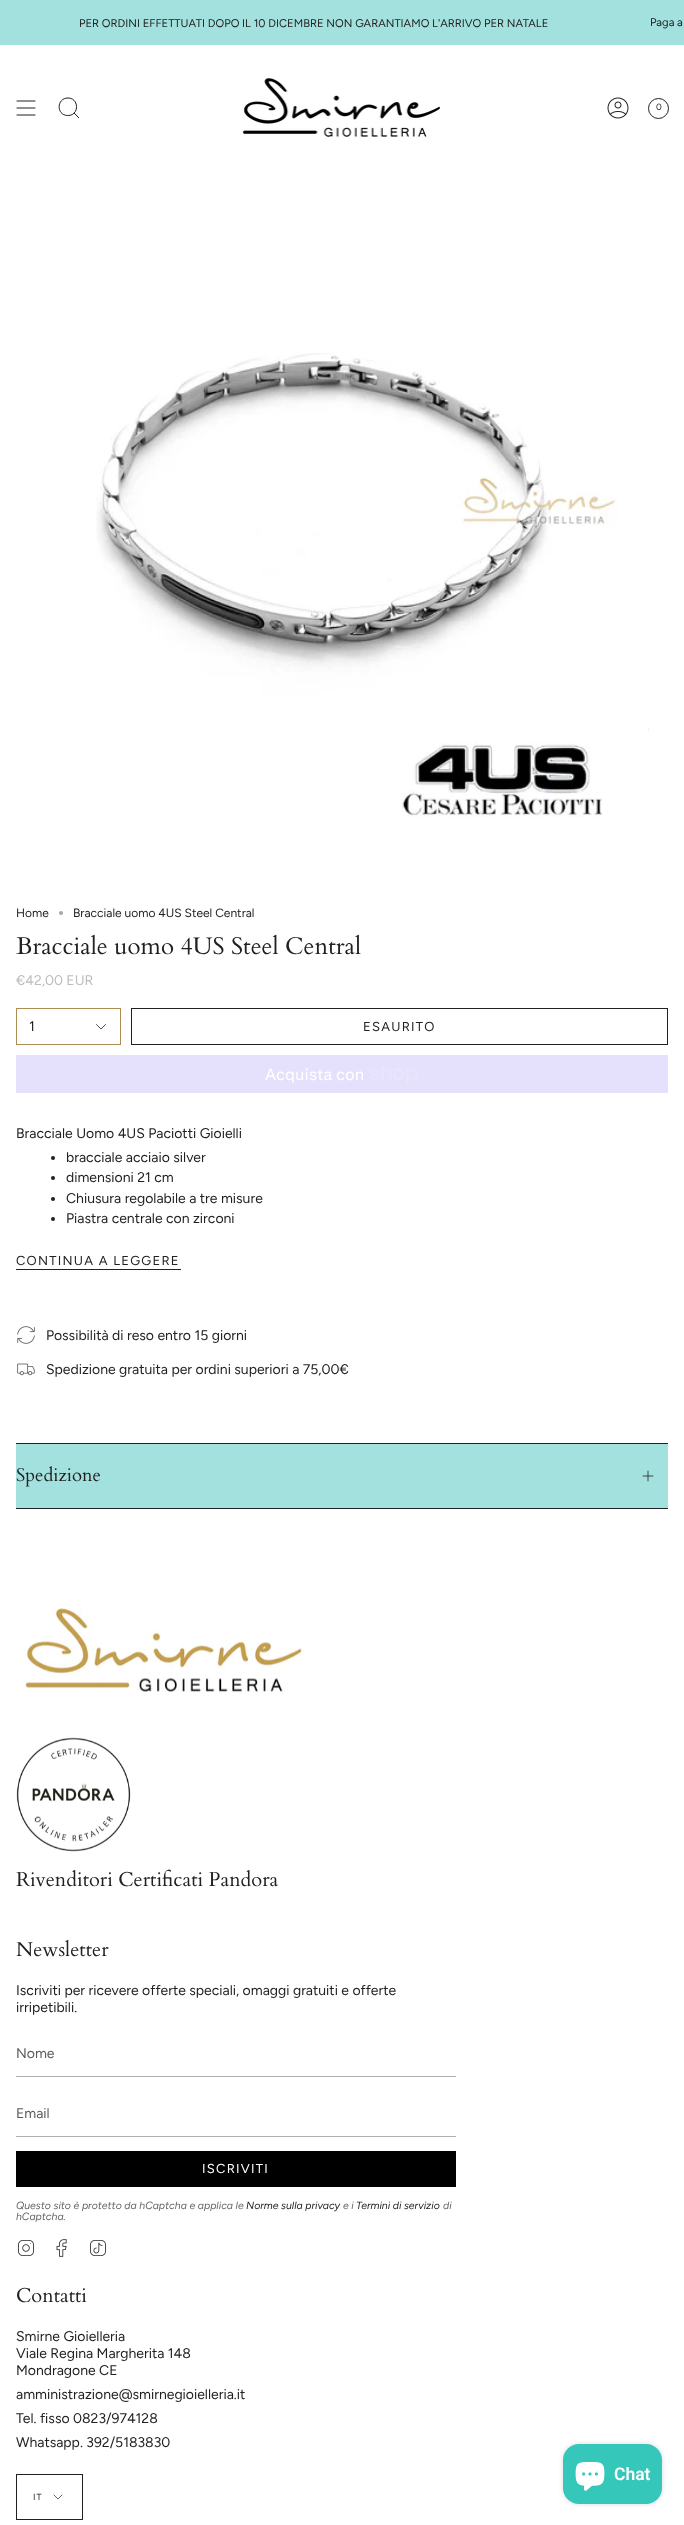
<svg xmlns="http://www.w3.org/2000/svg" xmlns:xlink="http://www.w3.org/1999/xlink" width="684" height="2525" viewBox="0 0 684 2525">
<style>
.cls-1{font:11.2px Figtree;fill:#212121}
.cls-2{font:9px Figtree;fill:#212121}
.cls-3{font:12px Figtree;fill:#212121}
.cls-4{font:24.1px Cardo;fill:#212121}
.cls-5{font:14px Figtree;fill:#bcbcbc}
.cls-6{font:14px Figtree;fill:#212121}
.cls-7{font:13px Figtree;letter-spacing:1.25px;fill:#212121}
.cls-8{font:16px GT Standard;fill:#ffffff}
.cls-9{font:18.5px Cardo;fill:#212121}
.cls-10{font:20.1px Cardo;fill:#212121}
.cls-11{font:14px Figtree;fill:#595959}
.cls-12{font:13px Figtree;letter-spacing:1.25px;fill:#ffffff}
.cls-13{font:italic 10.5px Figtree;fill:#646464}
.cls-14{font:italic 10.5px Figtree;fill:#212121}
.cls-15{font:9px Figtree;letter-spacing:1px;fill:#212121}
.cls-16{font:600 17.5px Roboto;fill:#ffffff}
</style>
<rect width="100%" height="100%" fill="#ffffff"/>
<rect fill="#a3e1de" x="0" y="0" width="684" height="45"/>
<path fill="none" stroke="#212121" stroke-linecap="round" stroke-linejoin="round" d="M17 101H35M17 108H35M17 115H35"/>
<path fill="none" stroke="#212121" d="M68 98C79.5 98 79.5 116 67.5 115.5C56 115 56.5 98 68 98ZM74 113L79 118"/>
<image xlink:href="image0.png" x="242" y="78" width="198" height="59"/>
<image xlink:href="image1.png" x="607" y="97" width="22" height="22"/>
<circle fill="none" stroke="#212121" cx="658.5" cy="108.5" r="10"/>
<image xlink:href="image2.png" x="96" y="353" width="522" height="464"/>
<image xlink:href="image3.png" x="648" y="728" width="2" height="3"/>
<circle fill="#a6a6a6" cx="61" cy="913" r="2"/>
<rect fill="none" stroke="#ab8c52" x="16.5" y="1008.5" width="104" height="36"/>
<path fill="none" stroke="#212121" stroke-width="0.8" stroke-linecap="round" stroke-linejoin="round" d="M96.5 1024.5L101 1029L105.5 1024.5"/>
<rect fill="none" stroke="#212121" x="131.5" y="1008.5" width="536" height="36"/>
<rect fill="#e5e0fc" x="16" y="1055" width="652" height="38"/>
<image xlink:href="image4.png" x="370" y="1065" width="48" height="19"/>
<circle fill="#212121" cx="53" cy="1158" r="2"/>
<circle fill="#212121" cx="53" cy="1178" r="2"/>
<circle fill="#212121" cx="53" cy="1199" r="2"/>
<circle fill="#212121" cx="53" cy="1219" r="2"/>
<rect fill="#212121" x="16" y="1269" width="165" height="1"/>
<image xlink:href="image5.png" x="17" y="1326" width="18" height="18"/>
<image xlink:href="image6.png" x="17" y="1363" width="18" height="13"/>
<rect fill="#a3e1de" x="16" y="1444" width="652" height="64"/>
<rect fill="#212121" x="16" y="1443" width="652" height="1"/>
<rect fill="#212121" x="16" y="1508" width="652" height="1"/>
<image xlink:href="image7.png" x="642" y="1470" width="12" height="12"/>
<image xlink:href="image8.png" x="23" y="1608" width="281" height="84"/>
<image xlink:href="image9.png" x="16" y="1737" width="115" height="115"/>
<rect fill="#b1b1b1" x="16" y="2076" width="440" height="1"/>
<rect fill="#b1b1b1" x="16" y="2136" width="440" height="1"/>
<rect fill="#000000" x="16" y="2151" width="440" height="36"/>
<image xlink:href="image10.png" x="18" y="2240" width="16" height="16"/>
<image xlink:href="image11.png" x="56" y="2239" width="11" height="18"/>
<image xlink:href="image12.png" x="90" y="2240" width="16" height="16"/>
<rect fill="none" stroke="#212121" x="16.5" y="2474.5" width="66" height="45"/>
<path fill="none" stroke="#212121" stroke-width="0.7" stroke-linecap="round" stroke-linejoin="round" d="M54 2495L58 2499L62 2495"/>
<rect fill="#000000" fill-opacity="0.15" filter="blur(2.5px)" x="563" y="2444" width="99" height="60" rx="16"/>
<rect fill="#34c7ba" x="563" y="2444" width="99" height="60" rx="16"/>
<image xlink:href="image13.png" x="575" y="2462" width="30" height="29"/>
<text class="cls-1" x="79" y="27">PER ORDINI EFFETTUATI DOPO IL 10 DICEMBRE NON GARANTIAMO L'ARRIVO PER NATALE</text>
<text class="cls-1" x="650" y="26">Paga a</text>
<text class="cls-2" x="656" y="110">0</text>
<text class="cls-3" x="16" y="917">Home</text>
<text class="cls-3" x="73" y="917">Bracciale uomo 4US Steel Central</text>
<text class="cls-4" x="16" y="954">Bracciale uomo 4US Steel Central</text>
<text class="cls-5" x="16" y="985">€42,00 EUR</text>
<text class="cls-6" x="29" y="1031">1</text>
<text class="cls-7" x="363" y="1031">ESAURITO</text>
<text class="cls-8" x="265" y="1080">Acquista con</text>
<text class="cls-6" x="16" y="1138">Bracciale Uomo 4US Paciotti Gioielli</text>
<text class="cls-6"><tspan x="66" y="1162">bracciale acciaio silver</tspan><tspan x="66" y="1182">dimensioni 21 cm</tspan><tspan x="66" y="1203">Chiusura regolabile a tre misure</tspan><tspan x="66" y="1223">Piastra centrale con zirconi</tspan></text>
<text class="cls-7" x="16" y="1265">CONTINUA A LEGGERE</text>
<text class="cls-6" x="46" y="1340">Possibilità di reso entro 15 giorni</text>
<text class="cls-6" x="46" y="1374">Spedizione gratuita per ordini superiori a 75,00€</text>
<text class="cls-9" x="16" y="1481">Spedizione</text>
<text class="cls-10" x="16" y="1886">Rivenditori Certificati Pandora</text>
<text class="cls-10" x="16" y="1956">Newsletter</text>
<text class="cls-6"><tspan x="16" y="1995">Iscriviti per ricevere offerte speciali, omaggi gratuiti e offerte</tspan><tspan x="16" y="2012">irripetibili.</tspan></text>
<text class="cls-11" x="16" y="2058">Nome</text>
<text class="cls-11" x="16" y="2118">Email</text>
<text class="cls-12" x="202" y="2173">ISCRIVITI</text>
<text class="cls-13" x="16" y="2209">Questo sito è protetto da hCaptcha e applica le</text>
<text class="cls-14" x="246" y="2209">Norme sulla privacy</text>
<text class="cls-13" x="343" y="2209">e i</text>
<text class="cls-14" x="356" y="2209">Termini di servizio</text>
<text class="cls-13" x="443" y="2209">di</text>
<text class="cls-13" x="16" y="2220">hCaptcha.</text>
<text class="cls-10" x="16" y="2302">Contatti</text>
<text class="cls-6"><tspan x="16" y="2341">Smirne Gioielleria</tspan><tspan x="16" y="2358">Viale Regina Margherita 148</tspan><tspan x="16" y="2375">Mondragone CE</tspan><tspan x="16" y="2399">amministrazione@smirnegioielleria.it</tspan><tspan x="16" y="2423">Tel. fisso 0823/974128</tspan><tspan x="16" y="2447">Whatsapp. 392/5183830</tspan></text>
<text class="cls-15" x="33" y="2500">IT</text>
<text class="cls-16" x="614" y="2480">Chat</text>
</svg>
